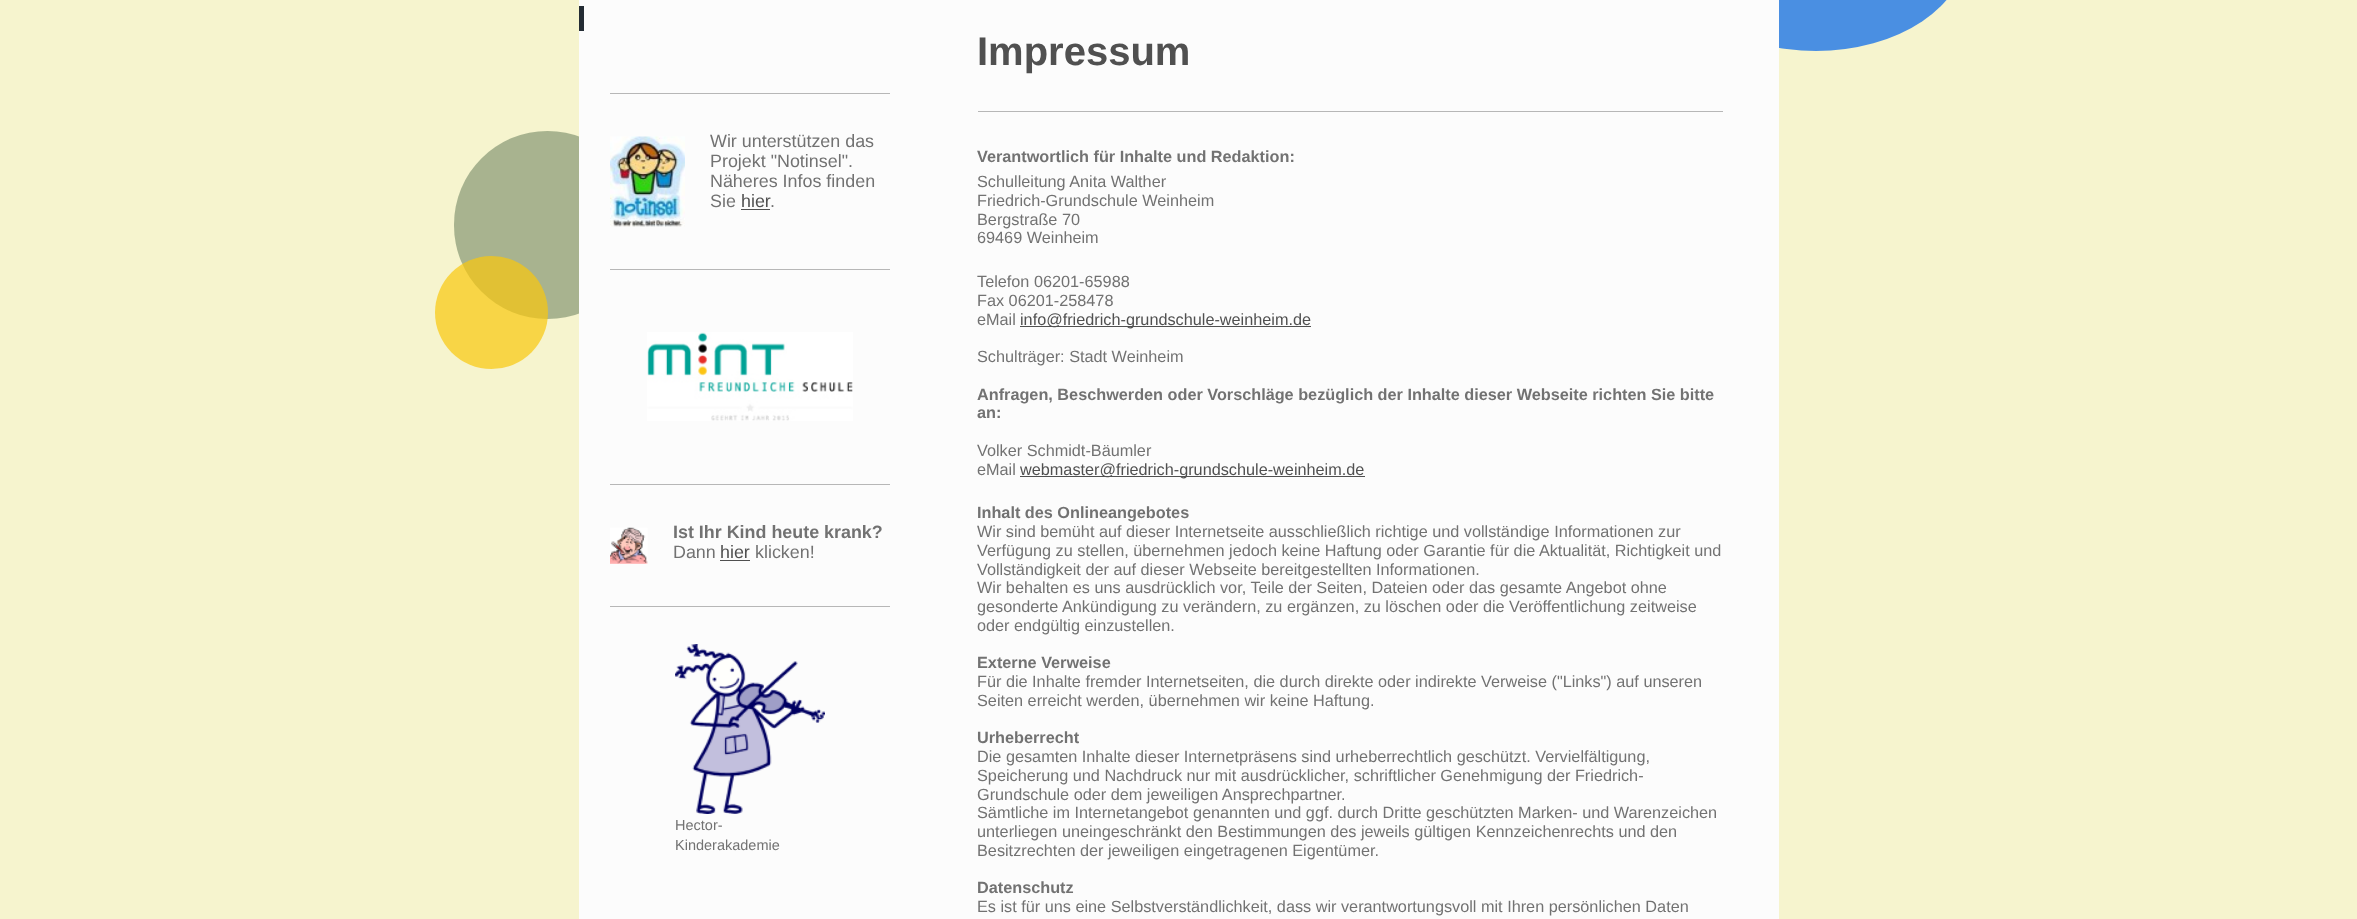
<svg xmlns="http://www.w3.org/2000/svg" xmlns:xlink="http://www.w3.org/1999/xlink" width="2357" height="919" viewBox="0 0 2357 919">
<style>
.cls-1{font:17.9px Liberation Sans;fill:#727272}
.cls-2{font:17.9px Liberation Sans;fill:#505050}
.cls-3{font:bold 17.9px Liberation Sans;fill:#727272}
.cls-4{font:14.5px Liberation Sans;fill:#727272}
.cls-5{font:bold 40px Liberation Sans;fill:#505050}
.cls-6{font:bold 16.25px Liberation Sans;fill:#727272}
.cls-7{font:16.25px Liberation Sans;fill:#727272}
.cls-8{font:16.25px Liberation Sans;fill:#505050}
</style>
<rect width="100%" height="100%" fill="#f6f4ce"/>
<rect fill="#1f75e7" fill-opacity="0.8" x="1666" y="-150" width="300" height="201" rx="150"/>
<rect fill="#8d9e7a" fill-opacity="0.75" x="454" y="131" width="187" height="188" rx="93.5"/>
<rect fill="#fcfcfc" x="579" y="0" width="1200" height="919"/>
<rect fill="#242c34" x="579" y="6" width="5" height="25"/>
<rect fill="#b7b7b7" x="610" y="93" width="280" height="1"/>
<image xlink:href="image0.png" x="610" y="136" width="75" height="91"/>
<rect fill="#505050" x="741" y="209" width="29" height="1"/>
<rect fill="#b7b7b7" x="610" y="269" width="280" height="1"/>
<image xlink:href="image1.png" x="647" y="332" width="206" height="89"/>
<rect fill="#b7b7b7" x="610" y="484" width="280" height="1"/>
<image xlink:href="image2.png" x="610" y="527" width="38" height="37"/>
<rect fill="#505050" x="720" y="560" width="30" height="1"/>
<rect fill="#b7b7b7" x="610" y="606" width="280" height="1"/>
<image xlink:href="image3.png" x="675" y="644" width="150" height="170"/>
<rect fill="#b7b7b7" x="978" y="111" width="745" height="1"/>
<rect fill="#505050" x="1020" y="326" width="291" height="1"/>
<rect fill="#505050" x="1020" y="476" width="345" height="1"/>
<circle fill="#fac70d" fill-opacity="0.7" cx="491.5" cy="312.5" r="56.5"/>
<text class="cls-1"><tspan x="710" y="147">Wir unterstützen das</tspan><tspan x="710" y="167">Projekt "Notinsel".</tspan><tspan x="710" y="187">Näheres Infos finden</tspan><tspan x="710" y="207">Sie</tspan></text>
<text class="cls-2" x="741" y="207">hier</text>
<text class="cls-1" x="770" y="207">.</text>
<text class="cls-3" x="673" y="538">Ist Ihr Kind heute krank?</text>
<text class="cls-1" x="673" y="558">Dann</text>
<text class="cls-2" x="720" y="558">hier</text>
<text class="cls-1" x="755" y="558">klicken!</text>
<text class="cls-4"><tspan x="675" y="830">Hector-</tspan><tspan x="675" y="850">Kinderakademie</tspan></text>
<text class="cls-5" x="977" y="65">Impressum</text>
<text class="cls-6" x="977" y="162">Verantwortlich für Inhalte und Redaktion:</text>
<text class="cls-7"><tspan x="977" y="187">Schulleitung Anita Walther</tspan><tspan x="977" y="206">Friedrich-Grundschule Weinheim</tspan><tspan x="977" y="225">Bergstraße 70</tspan><tspan x="977" y="243">69469 Weinheim</tspan></text>
<text class="cls-7"><tspan x="977" y="287">Telefon 06201-65988</tspan><tspan x="977" y="306">Fax 06201-258478</tspan><tspan x="977" y="325">eMail</tspan></text>
<text class="cls-8" x="1020" y="325">info@friedrich-grundschule-weinheim.de</text>
<text class="cls-7" x="977" y="362">Schulträger: Stadt Weinheim</text>
<text class="cls-6"><tspan x="977" y="400">Anfragen, Beschwerden oder Vorschläge bezüglich der Inhalte dieser Webseite richten Sie bitte</tspan><tspan x="977" y="418">an:</tspan></text>
<text class="cls-7"><tspan x="977" y="456">Volker Schmidt-Bäumler</tspan><tspan x="977" y="475">eMail</tspan></text>
<text class="cls-8" x="1020" y="475">webmaster@friedrich-grundschule-weinheim.de</text>
<text class="cls-6" x="977" y="518">Inhalt des Onlineangebotes</text>
<text class="cls-7"><tspan x="977" y="537">Wir sind bemüht auf dieser Internetseite ausschließlich richtige und vollständige Informationen zur</tspan><tspan x="977" y="556">Verfügung zu stellen, übernehmen jedoch keine Haftung oder Garantie für die Aktualität, Richtigkeit und</tspan><tspan x="977" y="575">Vollständigkeit der auf dieser Webseite bereitgestellten Informationen.</tspan><tspan x="977" y="593">Wir behalten es uns ausdrücklich vor, Teile der Seiten, Dateien oder das gesamte Angebot ohne</tspan><tspan x="977" y="612">gesonderte Ankündigung zu verändern, zu ergänzen, zu löschen oder die Veröffentlichung zeitweise</tspan><tspan x="977" y="631">oder endgültig einzustellen.</tspan></text>
<text class="cls-6" x="977" y="668">Externe Verweise</text>
<text class="cls-7"><tspan x="977" y="687">Für die Inhalte fremder Internetseiten, die durch direkte oder indirekte Verweise ("Links") auf unseren</tspan><tspan x="977" y="706">Seiten erreicht werden, übernehmen wir keine Haftung.</tspan></text>
<text class="cls-6" x="977" y="743">Urheberrecht</text>
<text class="cls-7"><tspan x="977" y="762">Die gesamten Inhalte dieser Internetpräsens sind urheberrechtlich geschützt. Vervielfältigung,</tspan><tspan x="977" y="781">Speicherung und Nachdruck nur mit ausdrücklicher, schriftlicher Genehmigung der Friedrich-</tspan><tspan x="977" y="800">Grundschule oder dem jeweiligen Ansprechpartner.</tspan><tspan x="977" y="818">Sämtliche im Internetangebot genannten und ggf. durch Dritte geschützten Marken- und Warenzeichen</tspan><tspan x="977" y="837">unterliegen uneingeschränkt den Bestimmungen des jeweils gültigen Kennzeichenrechts und den</tspan><tspan x="977" y="856">Besitzrechten der jeweiligen eingetragenen Eigentümer.</tspan></text>
<text class="cls-6" x="977" y="893">Datenschutz</text>
<text class="cls-7" x="977" y="912">Es ist für uns eine Selbstverständlichkeit, dass wir verantwortungsvoll mit Ihren persönlichen Daten</text>
</svg>
